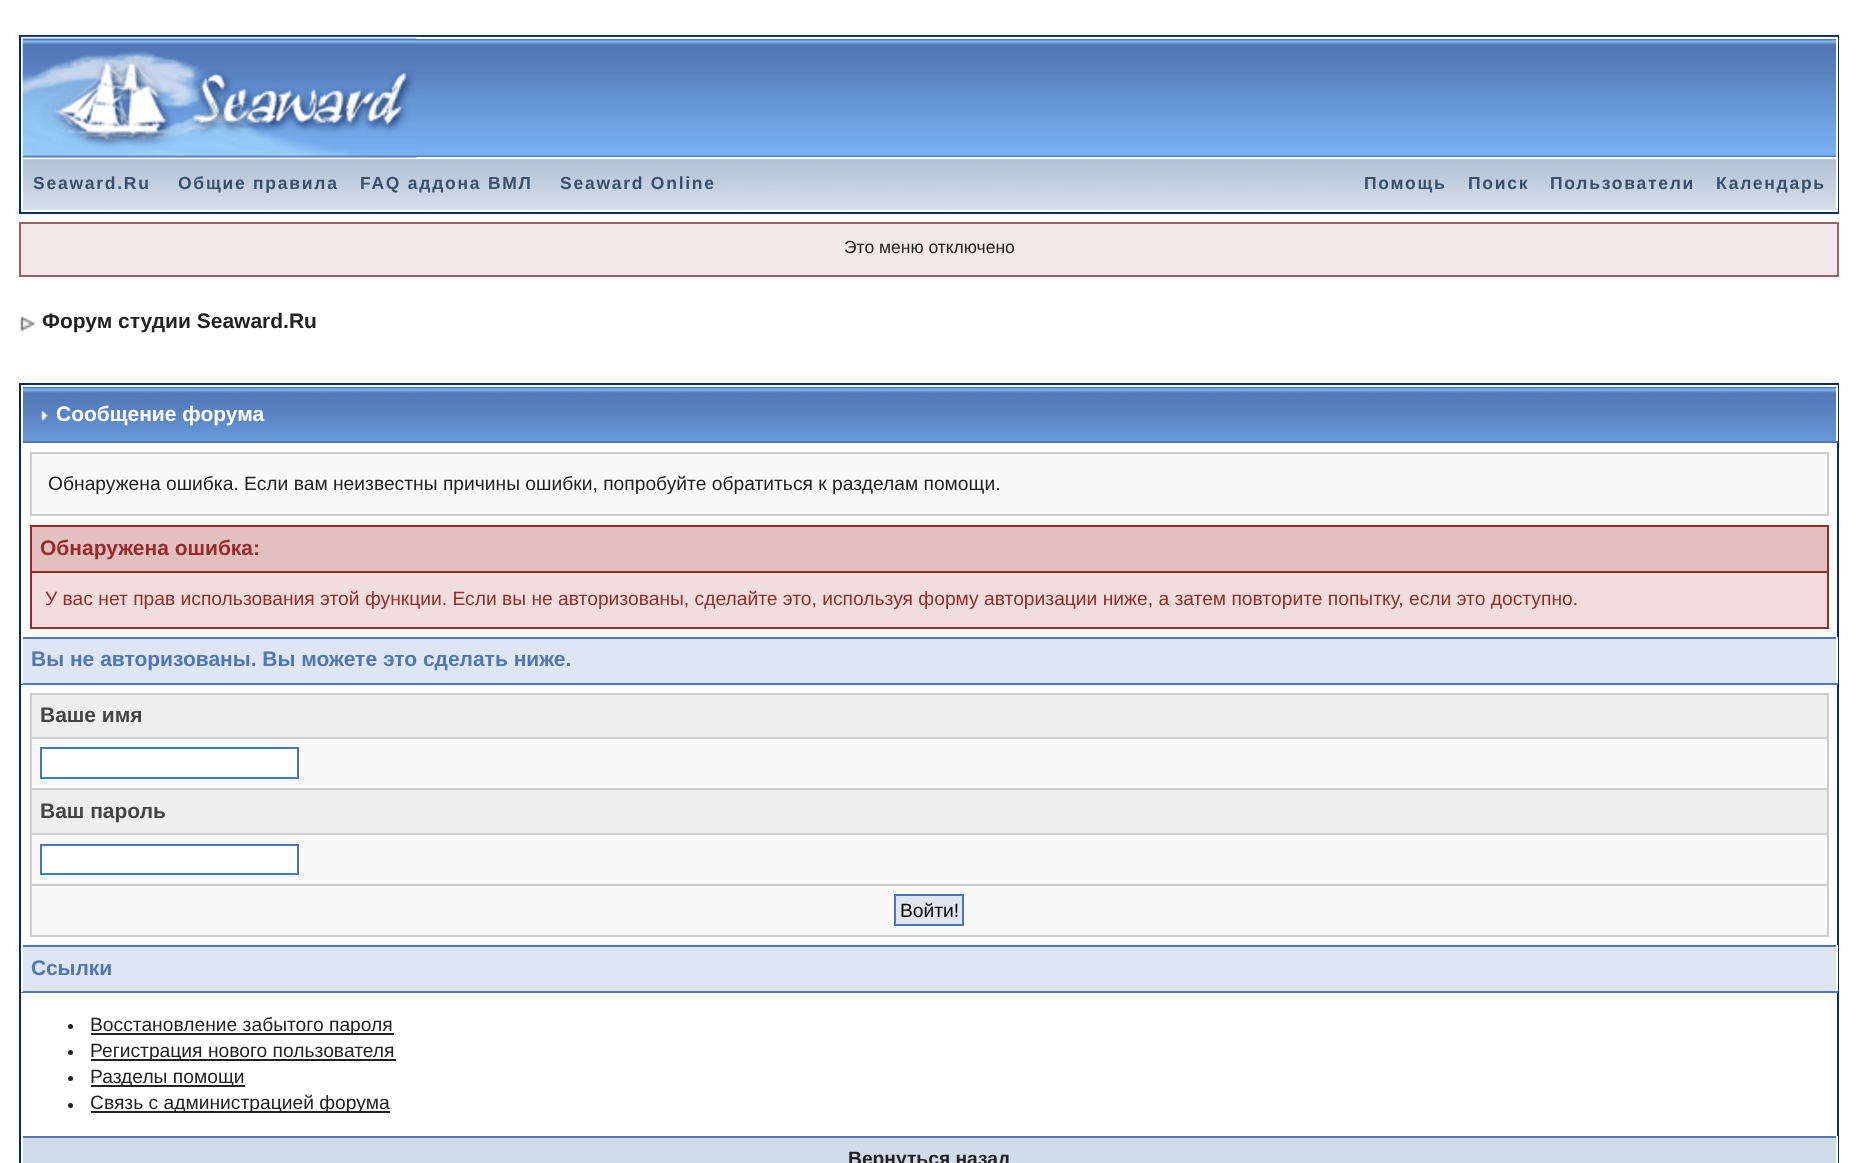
<svg xmlns="http://www.w3.org/2000/svg" xmlns:xlink="http://www.w3.org/1999/xlink" width="1858" height="1163" viewBox="0 0 1858 1163">
<style>
.cls-1{font:bold 17.5px Liberation Sans;letter-spacing:1.75px;fill:#3a4f6c}
.cls-2{font:17.5px Liberation Sans;fill:#222222}
.cls-3{font:bold 21px Liberation Sans;fill:#222222}
.cls-4{font:bold 21px Liberation Sans;fill:#ffffff}
.cls-5{font:19.25px Liberation Sans;fill:#222222}
.cls-6{font:bold 21px Liberation Sans;fill:#992a2a}
.cls-7{font:19.25px Liberation Sans;fill:#992a2a}
.cls-8{font:bold 21px Liberation Sans;fill:#5176b5}
.cls-9{font:bold 21px Liberation Sans;fill:#444444}
.cls-10{font:19.25px Liberation Sans;fill:#000000}
.cls-11{font:bold 19.25px Liberation Sans;fill:#222222}
</style>
<rect width="100%" height="100%" fill="#ffffff"/>
<rect fill="none" stroke="#072a66" stroke-width="2" x="20" y="36" width="1818" height="177"/>
<image xlink:href="image0.png" x="21" y="36" width="1817" height="124"/>
<rect fill="none" stroke="#ffffff" stroke-width="2" x="22" y="38" width="1815" height="120"/>
<image xlink:href="image1.png" x="22" y="38" width="395" height="120"/>
<image xlink:href="image2.png" x="23" y="159" width="1813" height="51"/>
<rect fill="#ffffff" x="1836" y="159" width="2" height="53"/>
<rect fill="#ffffff" x="21" y="159" width="2" height="1"/>
<rect fill="#f4e7ea" stroke="#986265" stroke-width="2" x="20" y="223" width="1818" height="53"/>
<image xlink:href="image3.png" x="20" y="316" width="16" height="16"/>
<rect fill="none" stroke="#072a66" stroke-width="2" x="20" y="384" width="1818" height="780"/>
<image xlink:href="image4.png" x="23" y="387" width="1813" height="54"/>
<rect fill="#ffffff" x="1837" y="385" width="1" height="58"/>
<rect fill="#5176b5" x="21" y="441" width="1817" height="2"/>
<rect fill="#ffffff" x="21" y="441" width="2" height="2"/>
<image xlink:href="image5.png" x="41" y="410" width="7" height="11"/>
<rect fill="#f9f9f9" stroke="#cccccc" stroke-width="2" x="31" y="453" width="1797" height="62"/>
<rect fill="#f2dddd" x="32" y="573" width="1795" height="54"/>
<rect fill="#992a2a" x="1827" y="525" width="2" height="103"/>
<rect fill="#992a2a" x="30" y="627" width="1799" height="2"/>
<rect fill="#992a2a" x="30" y="525" width="2" height="103"/>
<rect fill="#e3c0c0" x="32" y="527" width="1795" height="44"/>
<rect fill="#992a2a" x="32" y="525" width="1795" height="2"/>
<rect fill="#992a2a" x="32" y="571" width="1795" height="2"/>
<rect fill="#dde6f2" x="23" y="639" width="1813" height="44"/>
<rect fill="#5176b5" x="21" y="637" width="1817" height="2"/>
<rect fill="#ffffff" x="1836" y="637" width="2" height="47"/>
<rect fill="#5176b5" x="21" y="683" width="1817" height="2"/>
<rect fill="#ffffff" x="21" y="637" width="2" height="47"/>
<rect fill="#f9f9f9" x="32" y="739" width="1795" height="196"/>
<rect fill="#cccccc" x="1827" y="693" width="2" height="243"/>
<rect fill="#cccccc" x="30" y="935" width="1799" height="2"/>
<rect fill="#cccccc" x="30" y="693" width="2" height="243"/>
<rect fill="#eeeeee" x="32" y="695" width="1795" height="42"/>
<rect fill="#cccccc" x="32" y="693" width="1795" height="2"/>
<rect fill="#cccccc" x="32" y="737" width="1795" height="2"/>
<rect fill="#ffffff" stroke="#4c77b6" stroke-width="2" x="41" y="748" width="257" height="30"/>
<rect fill="#eeeeee" x="32" y="790" width="1795" height="43"/>
<rect fill="#cccccc" x="32" y="788" width="1795" height="2"/>
<rect fill="#cccccc" x="32" y="833" width="1795" height="2"/>
<rect fill="#ffffff" stroke="#4c77b6" stroke-width="2" x="41" y="845" width="257" height="29"/>
<rect fill="#cccccc" x="32" y="884" width="1795" height="2"/>
<rect fill="#dfe6ef" stroke="#4c77b6" stroke-width="2" x="895" y="895" width="68" height="30"/>
<rect fill="#dde6f2" x="23" y="947" width="1813" height="44"/>
<rect fill="#5176b5" x="21" y="945" width="1817" height="2"/>
<rect fill="#ffffff" x="1836" y="945" width="2" height="47"/>
<rect fill="#5176b5" x="21" y="991" width="1817" height="2"/>
<rect fill="#ffffff" x="21" y="945" width="2" height="47"/>
<circle fill="#222222" cx="70.5" cy="1026.5" r="2.5"/>
<rect fill="#222222" x="91" y="1033" width="303" height="2"/>
<circle fill="#222222" cx="70.5" cy="1052.5" r="2.5"/>
<rect fill="#222222" x="91" y="1059" width="305" height="2"/>
<circle fill="#222222" cx="70.5" cy="1078.5" r="2.5"/>
<rect fill="#222222" x="91" y="1085" width="154" height="2"/>
<circle fill="#222222" cx="70.5" cy="1105.5" r="2.5"/>
<rect fill="#222222" x="91" y="1111" width="299" height="2"/>
<rect fill="#d1dceb" x="23" y="1138" width="1813" height="25"/>
<rect fill="#5176b5" x="21" y="1136" width="1817" height="2"/>
<rect fill="#ffffff" x="1836" y="1136" width="2" height="27"/>
<rect fill="#ffffff" x="21" y="1136" width="2" height="2"/>
<text class="cls-1" x="33" y="189">Seaward.Ru</text>
<text class="cls-1" x="178" y="189">Общие правила</text>
<text class="cls-1" x="360" y="189">FAQ аддона ВМЛ</text>
<text class="cls-1" x="560" y="189">Seaward Online</text>
<text class="cls-1" x="1364" y="189">Помощь</text>
<text class="cls-1" x="1468" y="189">Поиск</text>
<text class="cls-1" x="1550" y="189">Пользователи</text>
<text class="cls-1" x="1716" y="189">Календарь</text>
<text class="cls-2" x="844" y="253">Это меню отключено</text>
<text class="cls-3" x="42" y="328">Форум студии Seaward.Ru</text>
<text class="cls-4" x="56" y="421">Сообщение форума</text>
<text class="cls-5" x="48" y="490">Обнаружена ошибка. Если вам неизвестны причины ошибки, попробуйте обратиться к разделам помощи.</text>
<text class="cls-6" x="40" y="555">Обнаружена ошибка:</text>
<text class="cls-7" x="45" y="605">У вас нет прав использования этой функции. Если вы не авторизованы, сделайте это, используя форму авторизации ниже, а затем повторите попытку, если это доступно.</text>
<text class="cls-8" x="31" y="666">Вы не авторизованы. Вы можете это сделать ниже.</text>
<text class="cls-9" x="40" y="722">Ваше имя</text>
<text class="cls-9" x="40" y="818">Ваш пароль</text>
<text class="cls-10" x="900" y="917">Войти!</text>
<text class="cls-8" x="31" y="975">Ссылки</text>
<text class="cls-5"><tspan x="90" y="1031">Восстановление забытого пароля</tspan><tspan x="90" y="1057">Регистрация нового пользователя</tspan><tspan x="90" y="1083">Разделы помощи</tspan><tspan x="90" y="1109">Связь с администрацией форума</tspan></text>
<text class="cls-11" x="848" y="1165">Вернуться назад</text>
</svg>
